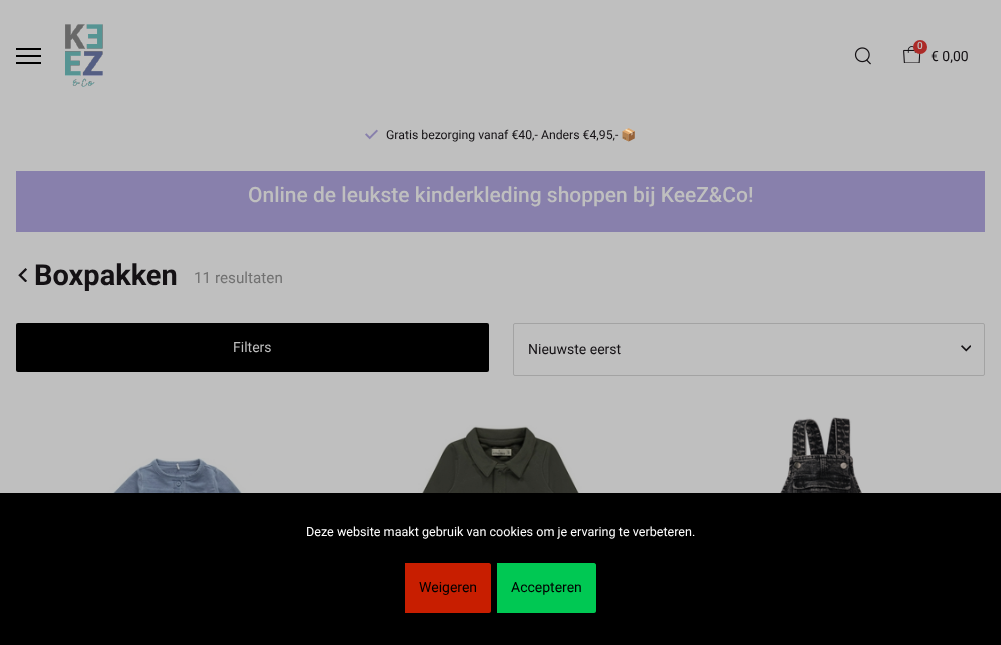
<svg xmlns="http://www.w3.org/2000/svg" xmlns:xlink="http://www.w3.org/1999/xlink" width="1001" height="645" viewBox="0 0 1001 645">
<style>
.cls-1{font:500 10px Roboto;fill:#bfbfbf}
.cls-2{font:14px Roboto;fill:#141114}
.cls-3{font:12.25px Roboto;fill:#141114}
.cls-4{font:12.25px Noto Color Emoji;fill:#141114}
.cls-5{font:500 21px Roboto;fill:#bfbfbf}
.cls-6{font:bold 29px Roboto;fill:#141114}
.cls-7{font:15.25px Roboto;fill:#717171}
.cls-8{font:14px Roboto;fill:#bfbfbf}
.cls-9{font:12.6px Roboto;fill:#ffffff}
.cls-10{font:14px Roboto;fill:#000000}
</style>
<rect width="100%" height="100%" fill="#bfbfbf"/>
<rect fill="#000000" x="16" y="48" width="25" height="2"/>
<rect fill="#000000" x="16" y="55" width="25" height="2"/>
<rect fill="#000000" x="16" y="62" width="25" height="2"/>
<image xlink:href="image0.png" x="65" y="24" width="38" height="63"/>
<image xlink:href="image1.png" x="854" y="47" width="17" height="18"/>
<image xlink:href="image2.png" x="903" y="46" width="18" height="17"/>
<circle fill="#ac2b28" cx="920" cy="47" r="7"/>
<image xlink:href="image3.png" x="365" y="129" width="13" height="11"/>
<rect fill="#8880ac" x="16" y="171" width="969" height="61"/>
<image xlink:href="image4.png" x="18" y="268" width="9" height="14"/>
<rect fill="#000000" x="16" y="323" width="473" height="49" rx="2"/>
<rect fill="none" stroke="#a3a3a3" x="513.5" y="323.5" width="471" height="52" rx="1.5"/>
<image xlink:href="image5.png" x="961" y="345" width="10" height="7"/>
<image xlink:href="image6.png" x="84" y="458" width="184" height="35"/>
<image xlink:href="image7.png" x="395" y="425" width="211" height="68"/>
<image xlink:href="image8.png" x="780" y="417" width="82" height="76"/>
<rect fill="#000000" x="0" y="493" width="1001" height="152"/>
<path fill="#c81e00" d="M405 563H489C490 563 491 564 491 565V611C491 612 490 613 489 613H405Z"/>
<path fill="#00c853" d="M497 563H594C595 563 596 564 596 565V611C596 612 595 613 594 613H497Z"/>
<text class="cls-1" x="917" y="49">0</text>
<text class="cls-2" x="931" y="61">€ 0,00</text>
<text class="cls-3" x="386" y="139">Gratis bezorging vanaf €40,- Anders €4,95,-</text>
<text class="cls-4" x="621" y="139">📦</text>
<text class="cls-5" x="248" y="202">Online de leukste kinderkleding shoppen bij KeeZ&amp;Co!</text>
<text class="cls-6" x="34" y="285">Boxpakken</text>
<text class="cls-7" x="194" y="283">11 resultaten</text>
<text class="cls-8" x="233" y="352">Filters</text>
<text class="cls-2" x="528" y="354">Nieuwste eerst</text>
<text class="cls-9" x="306" y="536">Deze website maakt gebruik van cookies om je ervaring te verbeteren.</text>
<text class="cls-10" x="419" y="592">Weigeren</text>
<text class="cls-10" x="511" y="592">Accepteren</text>
</svg>
